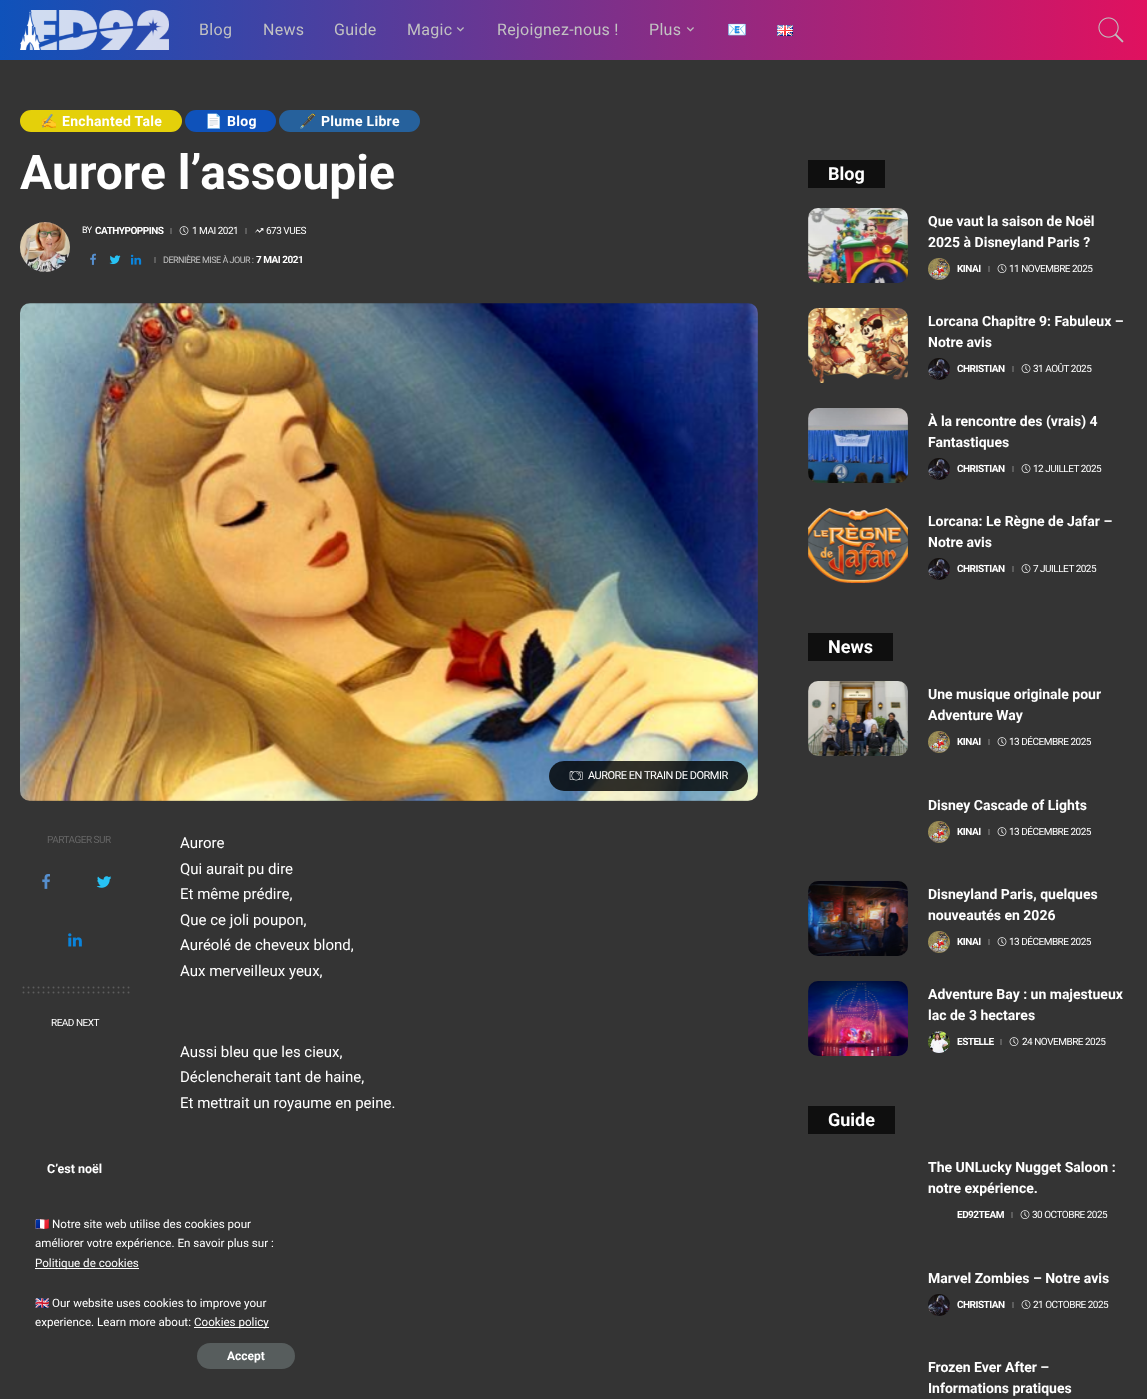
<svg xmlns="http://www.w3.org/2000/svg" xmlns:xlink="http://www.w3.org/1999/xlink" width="1147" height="1399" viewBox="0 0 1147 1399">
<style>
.cls-1{font:16px Roboto;letter-spacing:0.3px;fill:#c2c2c2}
.cls-2{font:16px Noto Color Emoji;letter-spacing:0.3px;fill:#c2c2c2}
.cls-3{font:bold 14px Noto Color Emoji;letter-spacing:0.3px;fill:#ffffff}
.cls-4{font:bold 14px Roboto;letter-spacing:0.3px;fill:#ffffff}
.cls-5{font:bold 48px Roboto;fill:#ffffff}
.cls-6{font:9px Roboto;letter-spacing:-0.5px;fill:#ffffff}
.cls-7{font:bold 10px Roboto;letter-spacing:-0.5px;fill:#ffffff}
.cls-8{font:10px Roboto;letter-spacing:-0.5px;fill:#ffffff}
.cls-9{font:9px Roboto;letter-spacing:-0.5px;fill:#c2c2c2}
.cls-10{font:11px Roboto;letter-spacing:-0.5px;fill:#ffffff}
.cls-11{font:10px Roboto;letter-spacing:-0.5px;fill:#666666}
.cls-12{font:bold 12.5px Roboto;fill:#ffffff}
.cls-13{font:15px Roboto;fill:#ffffff}
.cls-14{font:bold 18px Roboto;fill:#ffffff}
.cls-15{font:bold 14px Roboto;fill:#ffffff}
.cls-16{font:11.6px Noto Color Emoji;fill:#ffffff}
.cls-17{font:11.6px Roboto;fill:#ffffff}
.cls-18{font:bold 12px Roboto;fill:#ffffff}
</style>
<defs>
<linearGradient id="g1" gradientUnits="userSpaceOnUse" x1="0" y1="30" x2="1147" y2="30"><stop offset="0" stop-color="#0f52ba"/><stop offset="1" stop-color="#e0115f"/></linearGradient>
</defs>
<rect width="100%" height="100%" fill="#343434"/>
<rect fill="url(#g1)" x="0" y="0" width="1147" height="60"/>
<image xlink:href="image0.png" x="20" y="10" width="149" height="40"/>
<image xlink:href="image1.png" x="456" y="27" width="8" height="5"/>
<image xlink:href="image2.png" x="686" y="27" width="8" height="5"/>
<image xlink:href="image3.png" x="777" y="25" width="16" height="11"/>
<image xlink:href="image4.png" x="1098" y="17" width="26" height="26"/>
<rect fill="#e4d00a" x="20" y="110" width="162" height="22" rx="11"/>
<rect fill="#0f52ba" x="185" y="110" width="91" height="22" rx="11"/>
<rect fill="#26619c" x="279" y="110" width="141" height="22" rx="11"/>
<image xlink:href="image5.png" x="20" y="222" width="50" height="50"/>
<rect fill="#5d5d5d" x="170" y="228" width="2" height="6"/>
<image xlink:href="image6.png" x="179" y="226" width="10" height="9"/>
<rect fill="#5d5d5d" x="245" y="228" width="2" height="6"/>
<image xlink:href="image7.png" x="254" y="228" width="10" height="5"/>
<image xlink:href="image8.png" x="90" y="253" width="6" height="12"/>
<image xlink:href="image9.png" x="109" y="255" width="12" height="10"/>
<image xlink:href="image10.png" x="130" y="254" width="12" height="11"/>
<rect fill="#5d5d5d" x="154" y="257" width="2" height="6"/>
<image xlink:href="image11.png" x="20" y="303" width="738" height="498"/>
<rect fill="#000000" fill-opacity="0.8" x="549" y="761" width="199" height="30" rx="15"/>
<image xlink:href="image12.png" x="569" y="771" width="14" height="10"/>
<image xlink:href="image13.png" x="42" y="874" width="8" height="15"/>
<image xlink:href="image14.png" x="96" y="876" width="16" height="12"/>
<image xlink:href="image15.png" x="68" y="933" width="14" height="14"/>
<path fill="none" stroke="#5d5d5d" stroke-width="2" stroke-linecap="round" stroke-dasharray="0 5" d="M23.5 987.5H128.7"/>
<path fill="none" stroke="#5d5d5d" stroke-width="2" stroke-linecap="round" stroke-dasharray="0 5" d="M23.5 992.5H128.7"/>
<rect fill="#0f0f0f" x="808" y="160" width="77" height="28"/>
<image xlink:href="image16.png" x="808" y="208" width="100" height="75"/>
<image xlink:href="image17.png" x="928" y="258" width="22" height="22"/>
<rect fill="#5d5d5d" x="988" y="266" width="2" height="6"/>
<image xlink:href="image6.png" x="997" y="264" width="10" height="9"/>
<image xlink:href="image18.png" x="808" y="308" width="100" height="75"/>
<image xlink:href="image19.png" x="928" y="358" width="22" height="22"/>
<rect fill="#5d5d5d" x="1012" y="366" width="2" height="6"/>
<image xlink:href="image6.png" x="1021" y="364" width="10" height="9"/>
<image xlink:href="image20.png" x="808" y="408" width="100" height="75"/>
<image xlink:href="image19.png" x="928" y="458" width="22" height="22"/>
<rect fill="#5d5d5d" x="1012" y="466" width="2" height="6"/>
<image xlink:href="image6.png" x="1021" y="464" width="10" height="9"/>
<image xlink:href="image21.png" x="808" y="508" width="100" height="75"/>
<image xlink:href="image19.png" x="928" y="558" width="22" height="22"/>
<rect fill="#5d5d5d" x="1012" y="566" width="2" height="6"/>
<image xlink:href="image6.png" x="1021" y="564" width="10" height="9"/>
<rect fill="#0f0f0f" x="808" y="633" width="85" height="28"/>
<image xlink:href="image22.png" x="808" y="681" width="100" height="75"/>
<image xlink:href="image17.png" x="928" y="731" width="22" height="22"/>
<rect fill="#5d5d5d" x="988" y="739" width="2" height="6"/>
<image xlink:href="image6.png" x="997" y="737" width="10" height="9"/>
<image xlink:href="image23.png" x="928" y="821" width="22" height="22"/>
<rect fill="#5d5d5d" x="988" y="829" width="2" height="6"/>
<image xlink:href="image6.png" x="997" y="827" width="10" height="9"/>
<image xlink:href="image24.png" x="808" y="881" width="100" height="75"/>
<image xlink:href="image17.png" x="928" y="931" width="22" height="22"/>
<rect fill="#5d5d5d" x="988" y="939" width="2" height="6"/>
<image xlink:href="image6.png" x="997" y="937" width="10" height="9"/>
<image xlink:href="image25.png" x="808" y="981" width="100" height="75"/>
<image xlink:href="image26.png" x="928" y="1031" width="22" height="22"/>
<rect fill="#5d5d5d" x="1000" y="1039" width="2" height="6"/>
<image xlink:href="image6.png" x="1009" y="1037" width="10" height="9"/>
<rect fill="#0f0f0f" x="808" y="1106" width="87" height="28"/>
<rect fill="#5d5d5d" x="1011" y="1212" width="2" height="6"/>
<image xlink:href="image6.png" x="1020" y="1210" width="10" height="9"/>
<image xlink:href="image19.png" x="928" y="1294" width="22" height="22"/>
<rect fill="#5d5d5d" x="1012" y="1302" width="2" height="6"/>
<image xlink:href="image6.png" x="1021" y="1300" width="10" height="9"/>
<rect fill="#ffffff" x="35" y="1268" width="104" height="1"/>
<rect fill="#ffffff" x="194" y="1327" width="75" height="1"/>
<rect fill="#575d5d" x="197" y="1343" width="98" height="26" rx="13"/>
<text class="cls-1" x="199" y="35">Blog</text>
<text class="cls-1" x="263" y="35">News</text>
<text class="cls-1" x="334" y="35">Guide</text>
<text class="cls-1" x="407" y="35">Magic</text>
<text class="cls-1" x="497" y="35">Rejoignez-nous !</text>
<text class="cls-1" x="649" y="35">Plus</text>
<text class="cls-2" x="727" y="35">📧</text>
<text class="cls-3" x="40" y="126">✍️</text>
<text class="cls-4" x="62" y="126">Enchanted Tale</text>
<text class="cls-3" x="205" y="126">📄</text>
<text class="cls-4" x="227" y="126">Blog</text>
<text class="cls-3" x="299" y="126">🖋️</text>
<text class="cls-4" x="321" y="126">Plume Libre</text>
<text class="cls-5" x="20" y="189">Aurore l’assoupie</text>
<text class="cls-6" x="82" y="233">BY</text>
<text class="cls-7" x="95" y="234">CATHYPOPPINS</text>
<text class="cls-8" x="192" y="234">1 MAI 2021</text>
<text class="cls-8" x="266" y="234">673 VUES</text>
<text class="cls-9" x="163" y="263">DERNIÈRE MISE À JOUR :</text>
<text class="cls-7" x="256" y="263">7 MAI 2021</text>
<text class="cls-10" x="588" y="779">AURORE EN TRAIN DE DORMIR</text>
<text class="cls-11" x="47" y="843">PARTAGER SUR</text>
<text class="cls-8" x="51" y="1026">READ NEXT</text>
<text class="cls-12" x="47" y="1173">C’est noël</text>
<text class="cls-13"><tspan x="180" y="848">Aurore</tspan><tspan x="180" y="874">Qui aurait pu dire</tspan><tspan x="180" y="899">Et même prédire,</tspan><tspan x="180" y="925">Que ce joli poupon,</tspan><tspan x="180" y="950">Auréolé de cheveux blond,</tspan><tspan x="180" y="976">Aux merveilleux yeux,</tspan></text>
<text class="cls-13"><tspan x="180" y="1057">Aussi bleu que les cieux,</tspan><tspan x="180" y="1082">Déclencherait tant de haine,</tspan><tspan x="180" y="1108">Et mettrait un royaume en peine.</tspan></text>
<text class="cls-14" x="828" y="180">Blog</text>
<text class="cls-15"><tspan x="928" y="226">Que vaut la saison de Noël</tspan><tspan x="928" y="247">2025 à Disneyland Paris ?</tspan></text>
<text class="cls-7" x="957" y="272">KINAI</text>
<text class="cls-8" x="1009" y="272">11 NOVEMBRE 2025</text>
<text class="cls-15"><tspan x="928" y="326">Lorcana Chapitre 9: Fabuleux –</tspan><tspan x="928" y="347">Notre avis</tspan></text>
<text class="cls-7" x="957" y="372">CHRISTIAN</text>
<text class="cls-8" x="1033" y="372">31 AOÛT 2025</text>
<text class="cls-15"><tspan x="928" y="426">À la rencontre des (vrais) 4</tspan><tspan x="928" y="447">Fantastiques</tspan></text>
<text class="cls-7" x="957" y="472">CHRISTIAN</text>
<text class="cls-8" x="1033" y="472">12 JUILLET 2025</text>
<text class="cls-15"><tspan x="928" y="526">Lorcana: Le Règne de Jafar –</tspan><tspan x="928" y="547">Notre avis</tspan></text>
<text class="cls-7" x="957" y="572">CHRISTIAN</text>
<text class="cls-8" x="1033" y="572">7 JUILLET 2025</text>
<text class="cls-14" x="828" y="653">News</text>
<text class="cls-15"><tspan x="928" y="699">Une musique originale pour</tspan><tspan x="928" y="720">Adventure Way</tspan></text>
<text class="cls-7" x="957" y="745">KINAI</text>
<text class="cls-8" x="1009" y="745">13 DÉCEMBRE 2025</text>
<text class="cls-15" x="928" y="810">Disney Cascade of Lights</text>
<text class="cls-7" x="957" y="835">KINAI</text>
<text class="cls-8" x="1009" y="835">13 DÉCEMBRE 2025</text>
<text class="cls-15"><tspan x="928" y="899">Disneyland Paris, quelques</tspan><tspan x="928" y="920">nouveautés en 2026</tspan></text>
<text class="cls-7" x="957" y="945">KINAI</text>
<text class="cls-8" x="1009" y="945">13 DÉCEMBRE 2025</text>
<text class="cls-15"><tspan x="928" y="999">Adventure Bay : un majestueux</tspan><tspan x="928" y="1020">lac de 3 hectares</tspan></text>
<text class="cls-7" x="957" y="1045">ESTELLE</text>
<text class="cls-8" x="1022" y="1045">24 NOVEMBRE 2025</text>
<text class="cls-14" x="828" y="1126">Guide</text>
<text class="cls-15"><tspan x="928" y="1172">The UNLucky Nugget Saloon :</tspan><tspan x="928" y="1193">notre expérience.</tspan></text>
<text class="cls-7" x="957" y="1218">ED92TEAM</text>
<text class="cls-8" x="1032" y="1218">30 OCTOBRE 2025</text>
<text class="cls-15" x="928" y="1283">Marvel Zombies – Notre avis</text>
<text class="cls-7" x="957" y="1308">CHRISTIAN</text>
<text class="cls-8" x="1033" y="1308">21 OCTOBRE 2025</text>
<text class="cls-15"><tspan x="928" y="1372">Frozen Ever After –</tspan><tspan x="928" y="1393">Informations pratiques</tspan></text>
<text class="cls-16" x="35" y="1228">🇫🇷</text>
<text class="cls-17" x="52" y="1228">Notre site web utilise des cookies pour</text>
<text class="cls-17"><tspan x="35" y="1247">améliorer votre expérience. En savoir plus sur :</tspan><tspan x="35" y="1267">Politique de cookies</tspan></text>
<text class="cls-16" x="35" y="1307">🇬🇧</text>
<text class="cls-17" x="52" y="1307">Our website uses cookies to improve your</text>
<text class="cls-17" x="35" y="1326">experience. Learn more about:</text>
<text class="cls-17" x="194" y="1326">Cookies policy</text>
<text class="cls-18" x="227" y="1360">Accept</text>
</svg>
